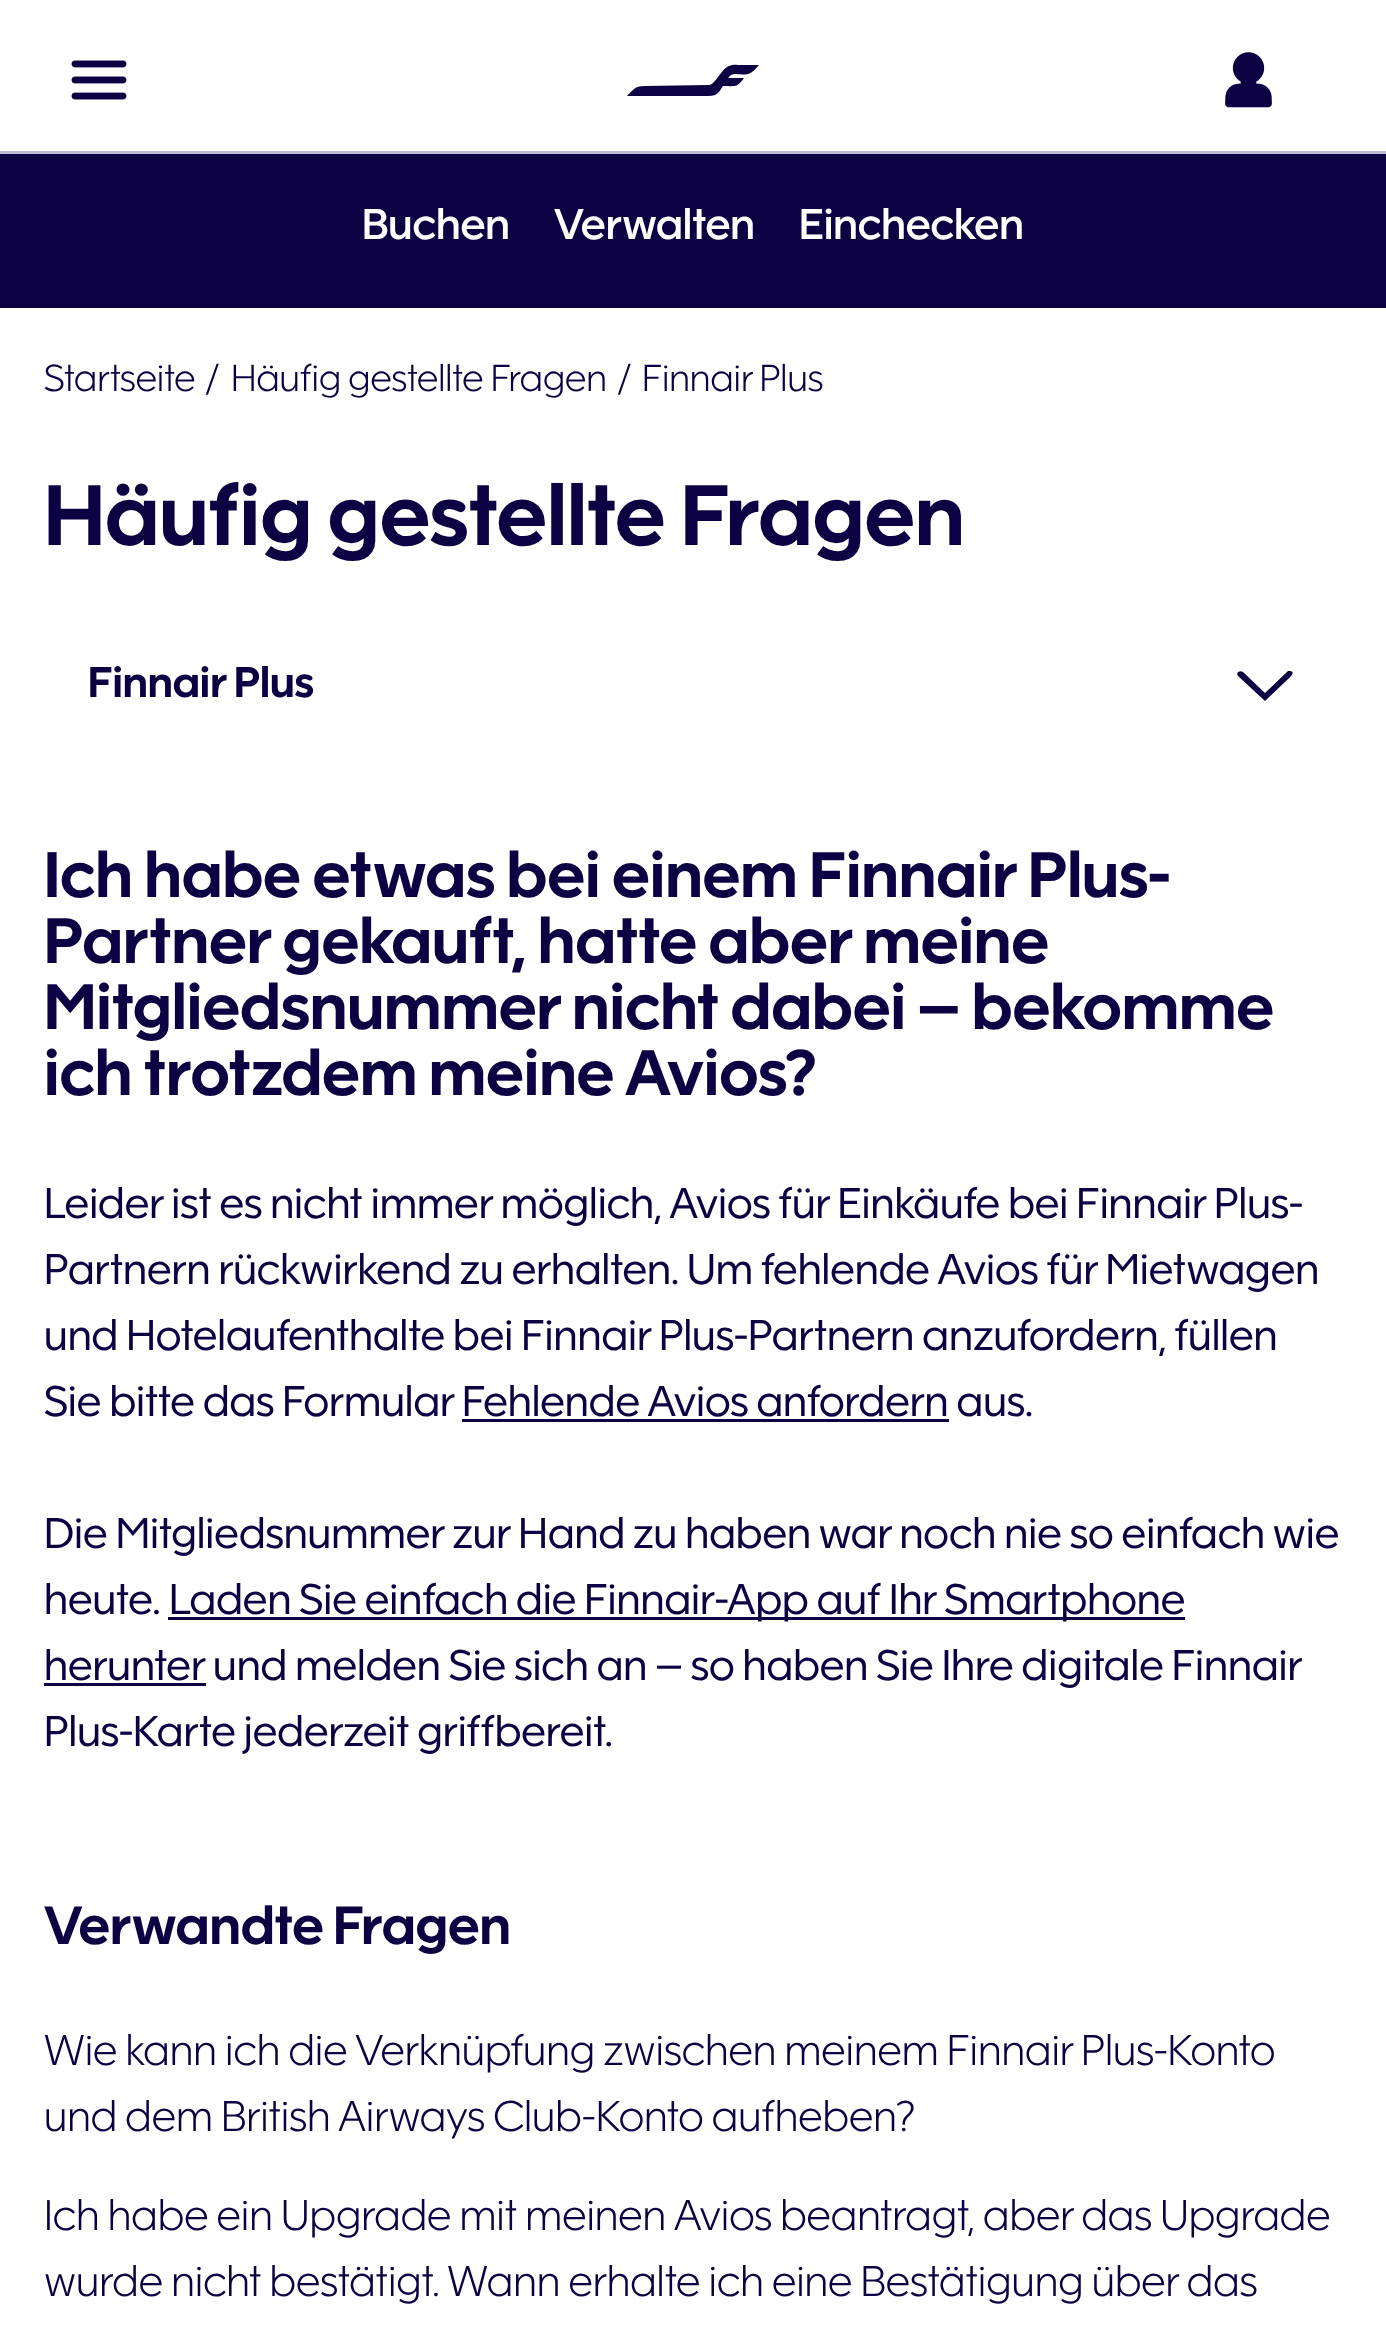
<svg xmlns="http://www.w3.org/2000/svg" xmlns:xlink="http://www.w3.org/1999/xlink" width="1386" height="2326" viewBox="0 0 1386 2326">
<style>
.cls-1{font:500 44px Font;fill:#ffffff}
.cls-2{font:300 38.5px Font;fill:#0c0243}
.cls-3{font:bold 88px Font;fill:#0c0243}
.cls-4{font:bold 44px Font;fill:#0c0243}
.cls-5{font:bold 66px Font;fill:#0c0243}
.cls-6{font:44px Font;fill:#0c0243}
.cls-7{font:bold 55px Font;fill:#0c0243}
.cls-8{font:300 44px Font;fill:#0c0243}
</style>
<rect width="100%" height="100%" fill="#ffffff"/>
<rect fill="#bbbcd4" x="0" y="151" width="1386" height="3"/>
<image xlink:href="image0.png" x="71" y="60" width="56" height="40"/>
<path fill="#0c0243" d="M654 96H627C633 90 635 86 644 86L709 85C715 85 722 68 729 66C733 64 738 65 742 65H759C757 67 755 70 752 72C747 76 740 74 734 74L731 75L728 78H744C737 88 735 86 723 86L719 92C716 95 713 96 708 96H654"/>
<image xlink:href="image1.png" x="1225" y="52" width="47" height="56"/>
<rect fill="#0c0243" x="0" y="154" width="1386" height="154"/>
<path fill="#0c0243" fill-rule="evenodd" d="M1238 672C1240 671 1241 671 1243 672L1265 693L1288 671H1290C1297 672 1288 679 1287 680L1265 701L1238 676C1237 675 1237 673 1238 672Z"/>
<rect fill="#0c0243" x="462" y="1419" width="487" height="3"/>
<rect fill="#0c0243" x="168" y="1617" width="1017" height="3"/>
<rect fill="#0c0243" x="44" y="1683" width="162" height="3"/>
<text class="cls-1" x="362" y="239">Buchen</text>
<text class="cls-1" x="554" y="239">Verwalten</text>
<text class="cls-1" x="799" y="239">Einchecken</text>
<text class="cls-2" x="44" y="391">Startseite</text>
<text class="cls-2" x="206" y="391">/</text>
<text class="cls-2" x="231" y="391">Häufig gestellte Fragen</text>
<text class="cls-2" x="618" y="391">/</text>
<text class="cls-2" x="642" y="391">Finnair Plus</text>
<text class="cls-3" x="44" y="545">Häufig gestellte Fragen</text>
<text class="cls-4" x="88" y="697">Finnair Plus</text>
<text class="cls-5"><tspan x="44" y="897">Ich habe etwas bei einem Finnair Plus-</tspan><tspan x="44" y="963">Partner gekauft, hatte aber meine</tspan><tspan x="44" y="1029">Mitgliedsnummer nicht dabei – bekomme</tspan><tspan x="44" y="1095">ich trotzdem meine Avios?</tspan></text>
<text class="cls-6"><tspan x="44" y="1218">Leider ist es nicht immer möglich, Avios für Einkäufe bei Finnair Plus-</tspan><tspan x="44" y="1284">Partnern rückwirkend zu erhalten. Um fehlende Avios für Mietwagen</tspan><tspan x="44" y="1350">und Hotelaufenthalte bei Finnair Plus-Partnern anzufordern, füllen</tspan><tspan x="44" y="1416">Sie bitte das Formular Fehlende Avios anfordern aus.</tspan></text>
<text class="cls-6"><tspan x="44" y="1548">Die Mitgliedsnummer zur Hand zu haben war noch nie so einfach wie</tspan><tspan x="44" y="1614">heute.</tspan></text>
<text class="cls-6" x="169" y="1614">Laden Sie einfach die Finnair-App auf Ihr Smartphone</text>
<text class="cls-6" x="44" y="1680">herunter</text>
<text class="cls-6" x="213" y="1680">und melden Sie sich an – so haben Sie Ihre digitale Finnair</text>
<text class="cls-6" x="44" y="1746">Plus-Karte jederzeit griffbereit.</text>
<text class="cls-7" x="44" y="1944">Verwandte Fragen</text>
<text class="cls-8"><tspan x="44" y="2065">Wie kann ich die Verknüpfung zwischen meinem Finnair Plus-Konto</tspan><tspan x="44" y="2131">und dem British Airways Club-Konto aufheben?</tspan></text>
<text class="cls-8"><tspan x="44" y="2230">Ich habe ein Upgrade mit meinen Avios beantragt, aber das Upgrade</tspan><tspan x="44" y="2296">wurde nicht bestätigt. Wann erhalte ich eine Bestätigung über das</tspan></text>
</svg>
